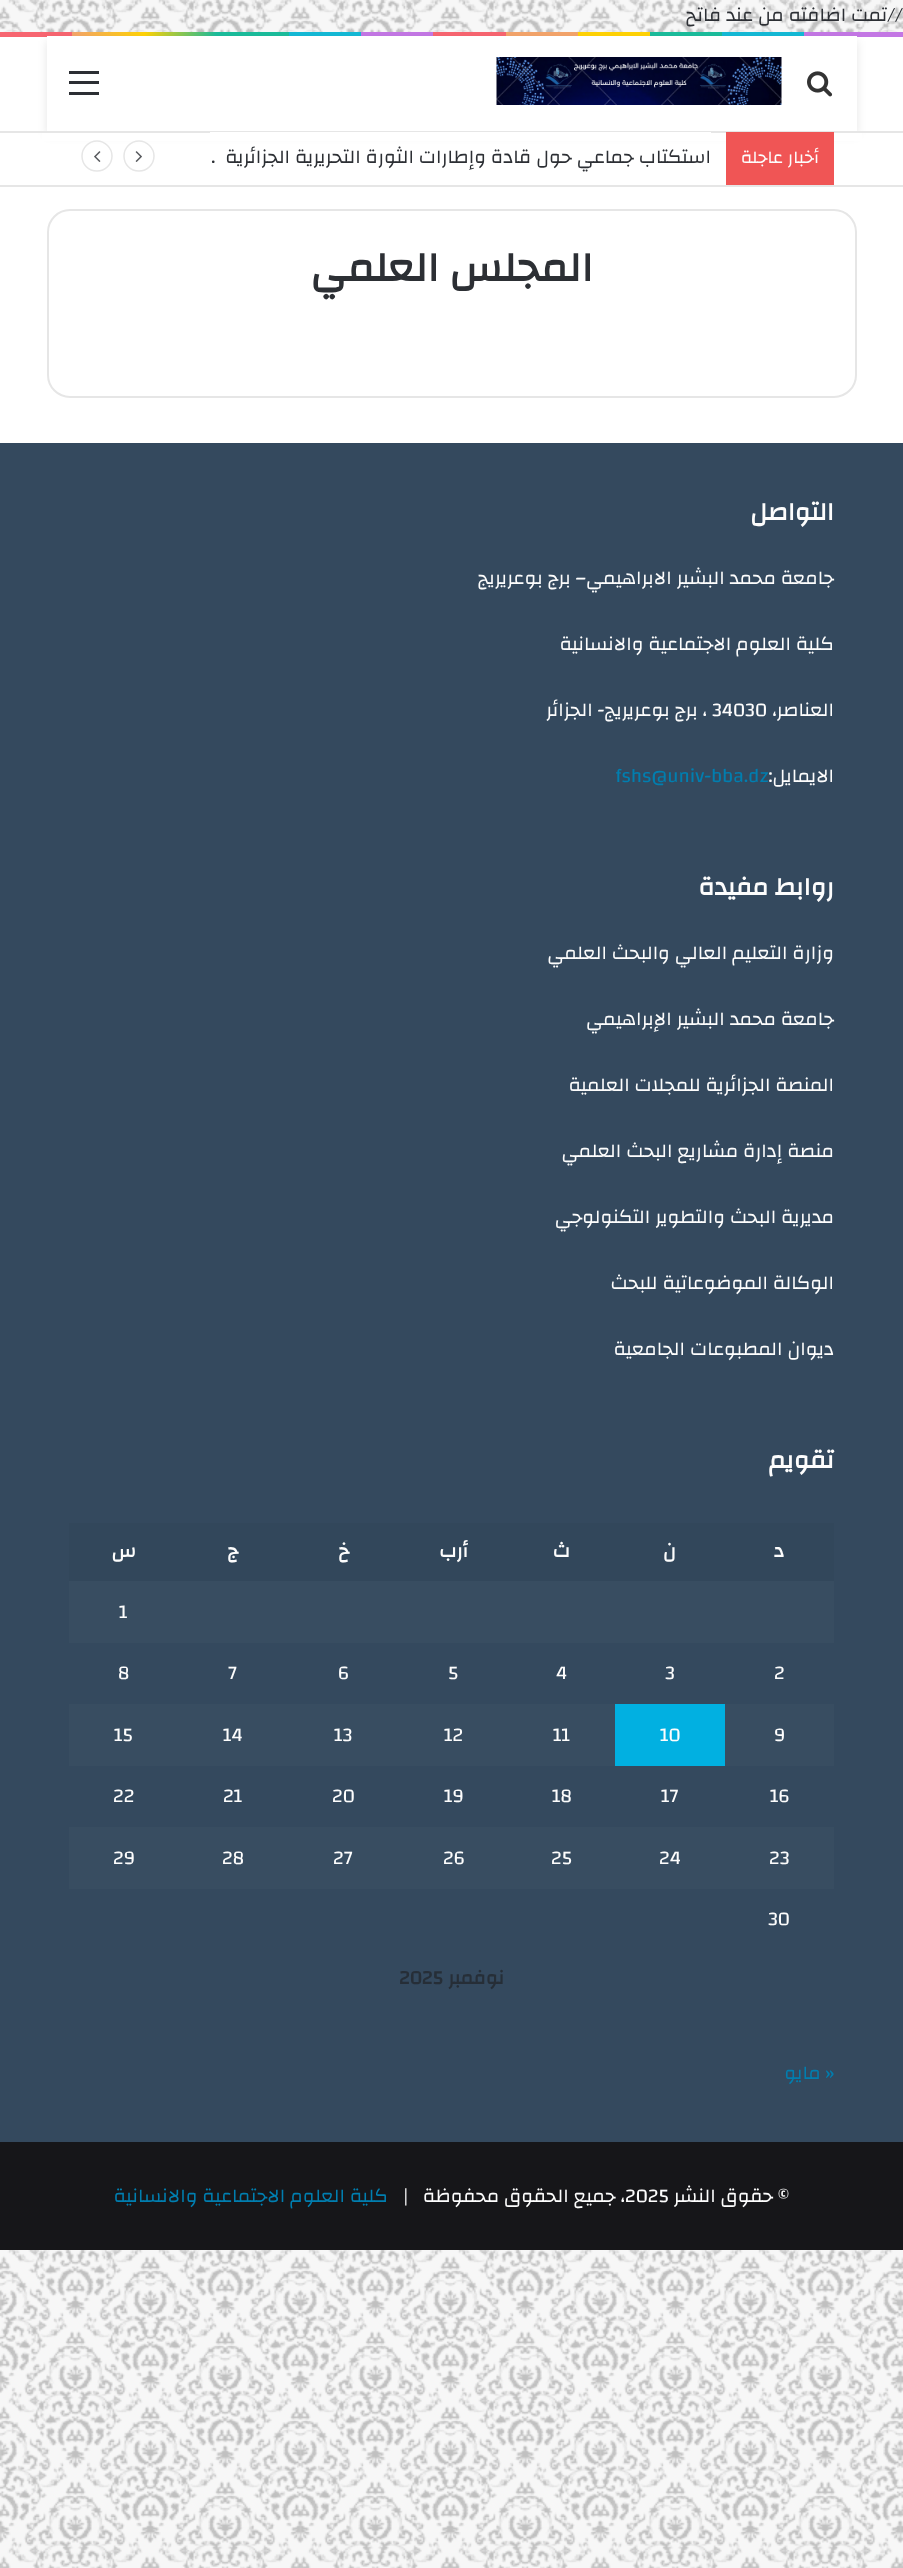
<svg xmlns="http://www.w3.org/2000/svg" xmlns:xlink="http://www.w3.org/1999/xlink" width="903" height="2568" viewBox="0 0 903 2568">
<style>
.cls-1{font:19.5px Changa;direction:rtl;fill:#2c2f34}
.cls-2{font:18px Changa;direction:rtl;fill:#fdfdfd}
.cls-3{font:bold 42px Changa;direction:rtl;fill:#2c2f34}
.cls-4{font:bold 25.5px Changa;direction:rtl;fill:#fdfdfd}
.cls-5{font:19.5px Changa;direction:rtl;fill:#fdfdfd}
.cls-6{font:19.5px Changa;fill:#fdfdfd}
.cls-7{font:19.5px Changa;fill:#017eaf}
.cls-8{font:bold 19.5px Changa;direction:rtl;fill:#fdfdfd}
.cls-9{font:bold 19.5px Changa;direction:rtl;fill:#262e37}
.cls-10{font:bold 19.5px Changa;fill:#262e37}
.cls-11{font:19.5px Changa;direction:rtl;fill:#017eaf}
</style>
<defs>
<linearGradient id="g1" gradientUnits="userSpaceOnUse" x1="0" y1="34" x2="903" y2="34"><stop offset="0" stop-color="#f76570"/><stop offset="0.08" stop-color="#f76570"/><stop offset="0.08" stop-color="#f3a46b"/><stop offset="0.16" stop-color="#ffd205"/><stop offset="0.24" stop-color="#1bbc9b"/><stop offset="0.32" stop-color="#1bbc9b"/><stop offset="0.32" stop-color="#14b9d5"/><stop offset="0.4" stop-color="#14b9d5"/><stop offset="0.4" stop-color="#c377e4"/><stop offset="0.48" stop-color="#c377e4"/><stop offset="0.48" stop-color="#f76570"/><stop offset="0.56" stop-color="#f76570"/><stop offset="0.56" stop-color="#f3a46b"/><stop offset="0.64" stop-color="#f3a46b"/><stop offset="0.64" stop-color="#ffd205"/><stop offset="0.72" stop-color="#ffd205"/><stop offset="0.72" stop-color="#1bbc9b"/><stop offset="0.8" stop-color="#1bbc9b"/><stop offset="0.8" stop-color="#14b9d5"/><stop offset="0.89" stop-color="#14b9d5"/><stop offset="0.89" stop-color="#c377e4"/><stop offset="1" stop-color="#c377e4"/></linearGradient>
</defs>
<rect width="100%" height="100%" fill="#f7f7f7"/>
<image xlink:href="image0.png" x="0" y="0" width="903" height="2568"/>
<rect fill="#ffffff" x="0" y="37" width="903" height="406"/>
<rect fill="url(#g1)" x="0" y="32" width="903" height="5"/>
<rect fill="#000000" fill-opacity="0.1" filter="blur(5px)" x="47" y="41" width="810" height="94"/>
<rect fill="#ffffff" x="47" y="36" width="810" height="95"/>
<image xlink:href="image1.png" x="807" y="71" width="26" height="26"/>
<image xlink:href="image2.png" x="496" y="57" width="286" height="48"/>
<rect fill="#2c2f34" x="69" y="81" width="30" height="3"/>
<rect fill="#2c2f34" x="69" y="71" width="30" height="3"/>
<rect fill="#2c2f34" x="69" y="92" width="30" height="3"/>
<rect fill="#ffffff" x="42" y="133" width="820" height="8"/>
<rect fill="#e6e6e6" x="0" y="131" width="903" height="2"/>
<rect fill="#e6e6e6" x="0" y="185" width="903" height="2"/>
<rect fill="#f05555" x="726" y="132" width="108" height="53"/>
<rect fill="#ffffff" x="210" y="132" width="501" height="1"/>
<path fill="none" stroke="#e6e6e6" stroke-width="1.5" d="M139 171C130.5 171 124 164.5 124 156C124 148 130.5 141 139 141C147 141 154 148 154 156C154 164.5 147 171 139 171Z"/>
<image xlink:href="image3.png" x="135" y="151" width="7" height="11"/>
<path fill="none" stroke="#e6e6e6" stroke-width="1.5" d="M97 171C88.5 171 82 164.5 82 156C82 148 88.5 141 97 141C105 141 112 148 112 156C112 164.5 105 171 97 171Z"/>
<image xlink:href="image4.png" x="94" y="151" width="7" height="11"/>
<rect fill="none" stroke="#e6e6e6" stroke-width="2" x="48" y="210" width="808" height="187" rx="22"/>
<rect fill="#34495e" x="0" y="443" width="903" height="1699"/>
<rect fill="#32475b" x="69" y="1523" width="765" height="58"/>
<rect fill="#384d61" x="69" y="1581" width="765" height="62"/>
<rect fill="#384d61" x="725" y="1704" width="109" height="62"/>
<rect fill="#01b0e1" x="615" y="1704" width="110" height="62"/>
<rect fill="#384d61" x="69" y="1704" width="546" height="62"/>
<rect fill="#384d61" x="69" y="1827" width="765" height="62"/>
<rect fill="#161619" x="0" y="2142" width="903" height="108"/>
<text class="cls-1" x="903" y="21">//تمت اضافته من عند فاتح</text>
<text class="cls-2" x="819" y="163">أخبار عاجلة</text>
<text class="cls-1" xml:space="preserve" x="711" y="163">استكتاب جماعي حول قادة وإطارات الثورة التحريرية الجزائرية  .</text>
<text class="cls-3" x="593" y="281">المجلس العلمي</text>
<text class="cls-4" x="834" y="520">التواصل</text>
<text class="cls-5" x="834" y="584">جامعة محمد البشير الابراهيمي– برج بوعريريج</text>
<text class="cls-5" x="834" y="650">كلية العلوم الاجتماعية والانسانية</text>
<text class="cls-5" x="834" y="716">العناصر،</text>
<text class="cls-6" x="712" y="716">34030</text>
<text class="cls-5" x="707" y="716">، برج بوعريريج- الجزائر</text>
<text class="cls-5" x="834" y="782">الايمايل:</text>
<text class="cls-7" x="615" y="782">fshs@univ-bba.dz</text>
<text class="cls-4" x="834" y="895">روابط مفيدة</text>
<text class="cls-5" x="834" y="959">وزارة التعليم العالي والبحث العلمي</text>
<text class="cls-5" x="834" y="1025">جامعة محمد البشير الإبراهيمي</text>
<text class="cls-5" x="834" y="1091">المنصة الجزائرية للمجلات العلمية</text>
<text class="cls-5" x="834" y="1157">منصة إدارة مشاريع البحث العلمي</text>
<text class="cls-5" x="834" y="1223">مديرية البحث والتطوير التكنولوجي</text>
<text class="cls-5" x="834" y="1289">الوكالة الموضوعاتية للبحث</text>
<text class="cls-5" x="834" y="1355">ديوان المطبوعات الجامعية</text>
<text class="cls-4" x="834" y="1468">تقويم</text>
<text class="cls-8" x="784" y="1557">د</text>
<text class="cls-8" x="676" y="1557">ن</text>
<text class="cls-8" x="570" y="1557">ث</text>
<text class="cls-8" x="468" y="1557">أرب</text>
<text class="cls-8" x="349" y="1557">خ</text>
<text class="cls-8" x="238" y="1557">ج</text>
<text class="cls-8" x="136" y="1557">س</text>
<text class="cls-6" x="119" y="1618">1</text>
<text class="cls-6" x="774" y="1679">2</text>
<text class="cls-6" x="665" y="1679">3</text>
<text class="cls-6" x="556" y="1679">4</text>
<text class="cls-6" x="448" y="1679">5</text>
<text class="cls-6" x="338" y="1679">6</text>
<text class="cls-6" x="228" y="1679">7</text>
<text class="cls-6" x="118" y="1679">8</text>
<text class="cls-6" x="774" y="1741">9</text>
<text class="cls-6" x="660" y="1741">10</text>
<text class="cls-6" x="553" y="1741">11</text>
<text class="cls-6" x="444" y="1741">12</text>
<text class="cls-6" x="334" y="1741">13</text>
<text class="cls-6" x="223" y="1741">14</text>
<text class="cls-6" x="114" y="1741">15</text>
<text class="cls-6" x="770" y="1802">16</text>
<text class="cls-6" x="661" y="1802">17</text>
<text class="cls-6" x="552" y="1802">18</text>
<text class="cls-6" x="444" y="1802">19</text>
<text class="cls-6" x="332" y="1802">20</text>
<text class="cls-6" x="223" y="1802">21</text>
<text class="cls-6" x="113" y="1802">22</text>
<text class="cls-6" x="769" y="1864">23</text>
<text class="cls-6" x="659" y="1864">24</text>
<text class="cls-6" x="551" y="1864">25</text>
<text class="cls-6" x="443" y="1864">26</text>
<text class="cls-6" x="333" y="1864">27</text>
<text class="cls-6" x="222" y="1864">28</text>
<text class="cls-6" x="113" y="1864">29</text>
<text class="cls-6" x="768" y="1925">30</text>
<text class="cls-9" x="504" y="1984">نوفمبر</text>
<text class="cls-10" x="399" y="1984">2025</text>
<text class="cls-11" x="834" y="2079">« مايو</text>
<text class="cls-5" x="789" y="2202">© حقوق النشر</text>
<text class="cls-6" x="625" y="2202">2025</text>
<text class="cls-5" xml:space="preserve" x="625" y="2202">، جميع الحقوق محفوظة   |</text>
<text class="cls-11" x="388" y="2202">كلية العلوم الاجتماعية والانسانية</text>
</svg>
